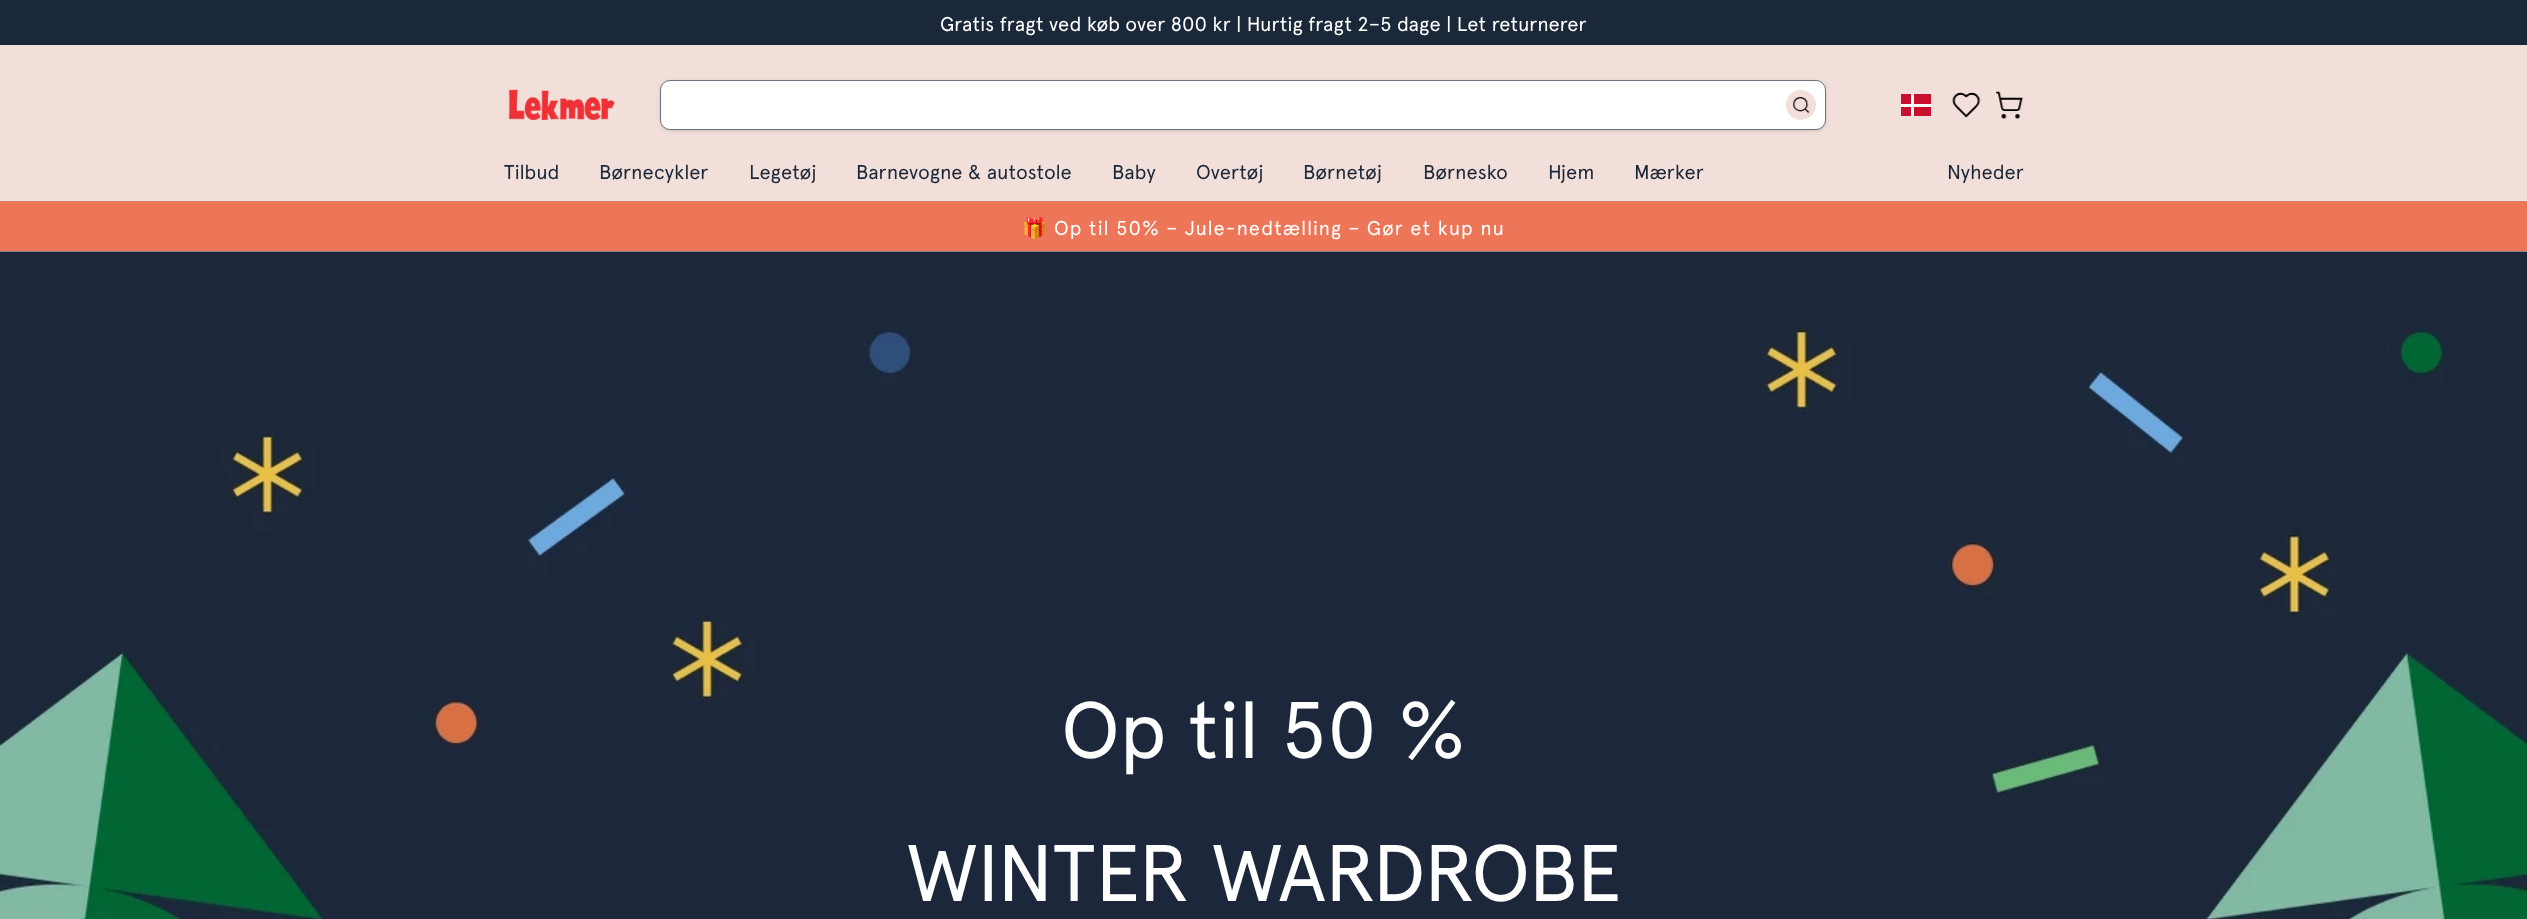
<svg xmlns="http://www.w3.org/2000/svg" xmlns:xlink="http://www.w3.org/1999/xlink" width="2527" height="919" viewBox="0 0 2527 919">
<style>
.cls-1{font:20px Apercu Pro;fill:#ffffff}
.cls-2{font:20px Apercu Pro;fill:#1b2839}
.cls-3{font:20px Noto Color Emoji;letter-spacing:1px;fill:#ffffff}
.cls-4{font:20px Apercu Pro;letter-spacing:1px;fill:#ffffff}
.cls-5{font:80px Apercu Pro;fill:#ffffff}
</style>
<rect width="100%" height="100%" fill="#ffffff"/>
<rect fill="#1b2839" x="0" y="0" width="2527" height="45"/>
<rect fill="#f2dfda" x="0" y="45" width="2527" height="155"/>
<image xlink:href="image0.png" x="508" y="89" width="107" height="32"/>
<rect fill="#000000" fill-opacity="0.1" filter="blur(1px)" x="661" y="83" width="1164" height="47" rx="9"/>
<rect fill="#000000" fill-opacity="0.1" filter="blur(2px)" x="660" y="81" width="1166" height="50" rx="10"/>
<rect fill="#ffffff" stroke="#6b7280" x="660.5" y="80.5" width="1165" height="49" rx="9.5"/>
<circle fill="#f2dfda" cx="1801" cy="105" r="15"/>
<image xlink:href="image1.png" x="1792" y="97" width="18" height="16"/>
<rect fill="#c8102e" x="1901" y="94" width="30" height="22"/>
<rect fill="#ffffff" x="1911" y="94" width="3" height="22"/>
<rect fill="#ffffff" x="1901" y="104" width="30" height="3"/>
<image xlink:href="image2.png" x="1952" y="92" width="29" height="26"/>
<image xlink:href="image3.png" x="1996" y="91" width="28" height="28"/>
<rect fill="#e5e7eb" x="0" y="200" width="2527" height="1"/>
<rect fill="#ed7558" x="0" y="201" width="2527" height="50"/>
<image xlink:href="image4.png" x="0" y="251" width="2527" height="668"/>
<text class="cls-1" x="940" y="31">Gratis fragt ved køb over 800 kr | Hurtig fragt 2–5 dage | Let returnerer</text>
<text class="cls-2" x="504" y="179">Tilbud</text>
<text class="cls-2" x="599" y="179">Børnecykler</text>
<text class="cls-2" x="749" y="179">Legetøj</text>
<text class="cls-2" x="856" y="179">Barnevogne &amp; autostole</text>
<text class="cls-2" x="1112" y="179">Baby</text>
<text class="cls-2" x="1196" y="179">Overtøj</text>
<text class="cls-2" x="1303" y="179">Børnetøj</text>
<text class="cls-2" x="1423" y="179">Børnesko</text>
<text class="cls-2" x="1548" y="179">Hjem</text>
<text class="cls-2" x="1634" y="179">Mærker</text>
<text class="cls-2" x="1947" y="179">Nyheder</text>
<text class="cls-3" x="1022" y="235">🎁</text>
<text class="cls-4" x="1054" y="235">Op til 50% – Jule-nedtælling – Gør et kup nu</text>
<text class="cls-5" x="1061" y="758">Op til 50 %</text>
<text class="cls-5" x="906" y="901">WINTER WARDROBE</text>
</svg>
